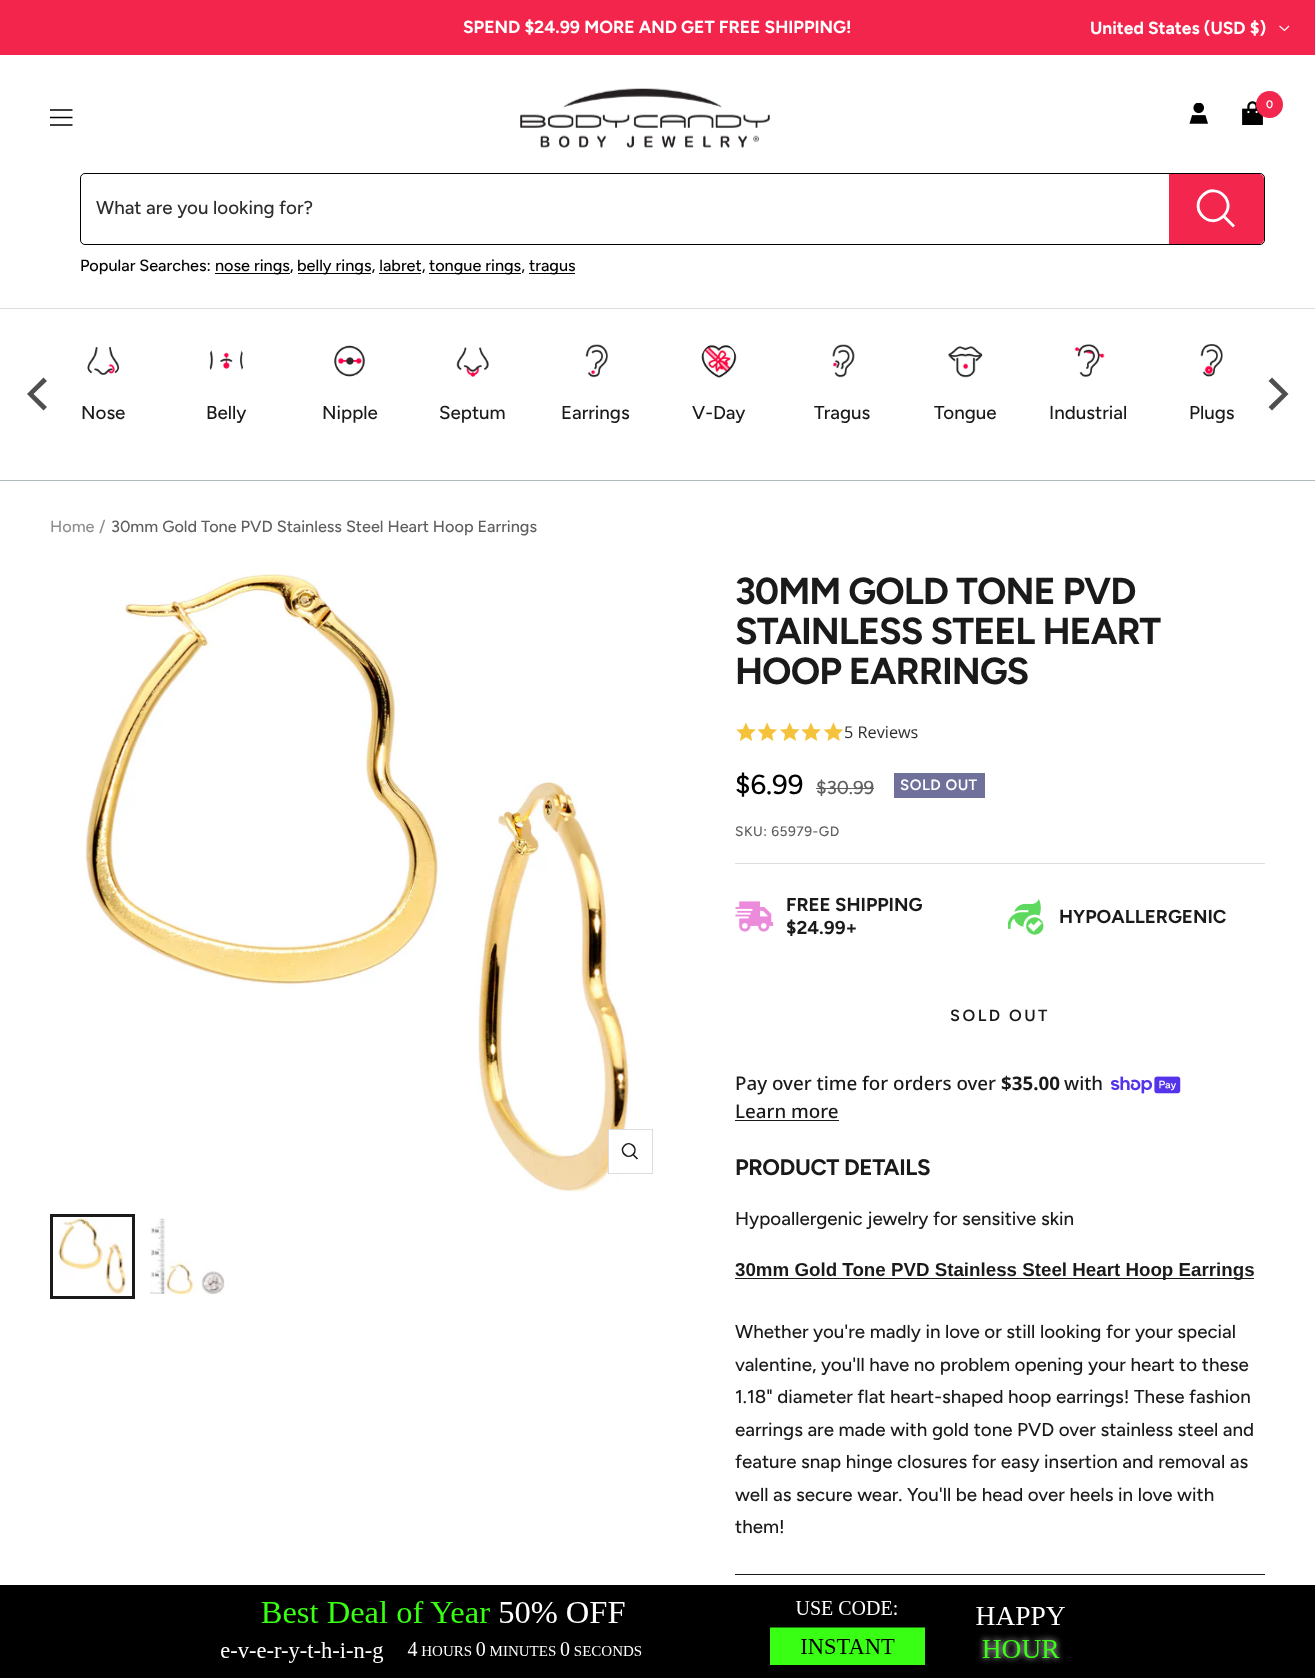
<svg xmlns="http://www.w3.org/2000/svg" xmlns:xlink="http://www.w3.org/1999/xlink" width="1315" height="1678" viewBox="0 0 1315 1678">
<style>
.cls-1{font:bold 17.5px Figtree;fill:#ffffff}
.cls-2{font:600 11px Figtree;fill:#ffffff}
.cls-3{font:500 18.75px Figtree;fill:#2f2e2e}
.cls-4{font:500 16.25px Figtree;fill:#000000}
.cls-5{font:500 18.75px Figtree;fill:#1a1a1a}
.cls-6{font:500 16.25px Figtree;fill:#8f8f8f}
.cls-7{font:500 16.25px Figtree;fill:#5f5f5f}
.cls-8{font:bold 37.5px Figtree;letter-spacing:-1px;fill:#1a1a1a}
.cls-9{font:16.25px Open Sans;fill:#2f2e2e}
.cls-10{font:500 27.5px Figtree;fill:#000000}
.cls-11{font:500 18.75px Figtree;fill:#5f5f5f}
.cls-12{font:600 15px Figtree;letter-spacing:0.5px;fill:#ffffff}
.cls-13{font:500 13.75px Figtree;letter-spacing:0.5px;fill:#5f5f5f}
.cls-14{font:bold 18.75px Figtree;fill:#1a1a1a}
.cls-15{font:600 16.25px Figtree;letter-spacing:2.5px;fill:#1a1a1a}
.cls-16{font:500 18.75px Noto Sans;fill:#1a1a1a}
.cls-17{font:bold 18.75px Noto Sans;fill:#1a1a1a}
.cls-18{font:bold 22.5px Figtree;letter-spacing:-0.4px;fill:#1a1a1a}
.cls-19{font:bold 18.75px Liberation Sans;fill:#1a1a1a}
</style>
<rect width="100%" height="100%" fill="#ffffff"/>
<rect fill="#f3254d" x="0" y="0" width="1315" height="55"/>
<path fill="none" stroke="#ffffff" stroke-width="1.2" d="M1279.5 26L1284.5 30.5L1289 26"/>
<rect fill="#dddddd" x="0" y="308" width="1315" height="1"/>
<image xlink:href="image0.png" x="520" y="88" width="250" height="60"/>
<image xlink:href="image1.png" x="1189" y="103" width="19" height="21"/>
<image xlink:href="image2.png" x="1242" y="101" width="21" height="24"/>
<circle fill="#f3264d" cx="1269.5" cy="104.5" r="13.5"/>
<path fill="none" stroke="#000000" stroke-width="1.6" d="M50 110H72.5M50 125H72.5ZM50 117.5H72.5Z"/>
<rect fill="none" stroke="#000000" x="80.5" y="173.5" width="1184" height="71" rx="4.5"/>
<path fill="#f3264d" d="M1169 174H1259C1262 174 1264 176 1264 179V239C1264 242 1262 244 1259 244H1169Z"/>
<path fill="none" stroke="#ffffff" stroke-width="2.9" d="M1223.5 216C1237.5 202 1216.5 181.5 1202.5 195.5C1189 209.5 1209.5 230 1223.5 216ZM1223.5 216L1234 226.5"/>
<rect fill="#000000" x="215" y="273" width="75" height="1"/>
<rect fill="#000000" x="298" y="273" width="73" height="1"/>
<rect fill="#000000" x="429" y="273" width="92" height="1"/>
<rect fill="#000000" x="529" y="273" width="46" height="1"/>
<rect fill="#000000" x="379" y="273" width="42" height="1"/>
<rect fill="#b0babc" x="0" y="480" width="1315" height="1"/>
<path fill="#514e4e" d="M27 394L43.5 410.5L47 407L33.5 394L47 381L43.5 377.5Z"/>
<path fill="#514e4e" d="M1288.5 394L1272 377.5L1268.5 381L1282 394L1268.5 407L1272 410.5Z"/>
<image xlink:href="image3.png" x="87" y="347" width="33" height="28"/>
<image xlink:href="image4.png" x="209" y="350" width="34" height="20"/>
<image xlink:href="image5.png" x="334" y="345" width="31" height="32"/>
<image xlink:href="image6.png" x="456" y="347" width="33" height="30"/>
<image xlink:href="image7.png" x="585" y="344" width="23" height="34"/>
<image xlink:href="image8.png" x="701" y="345" width="36" height="33"/>
<image xlink:href="image9.png" x="832" y="344" width="23" height="34"/>
<image xlink:href="image10.png" x="948" y="346" width="35" height="32"/>
<image xlink:href="image11.png" x="1074" y="344" width="31" height="34"/>
<image xlink:href="image12.png" x="1200" y="344" width="23" height="33"/>
<image xlink:href="image13.png" x="85" y="573" width="545" height="619"/>
<rect fill="#ffffff" x="609" y="1130" width="17" height="43"/>
<rect fill="none" stroke="#dddddd" x="608.5" y="1129.5" width="44" height="44"/>
<path fill="none" stroke="#1a1a1a" stroke-width="1.6" d="M633 1154.5C639 1148.5 630 1140 624.5 1145.5C618.5 1151.5 627.5 1160 633 1154.5ZM633 1154.5L637.5 1159"/>
<image xlink:href="image14.png" x="55" y="1218" width="72" height="76"/>
<rect fill="none" stroke="#1a1a1a" stroke-width="3" x="51.5" y="1215.5" width="82" height="82"/>
<image xlink:href="image15.png" x="150" y="1218" width="75" height="76"/>
<rect fill="#dddddd" x="735" y="863" width="530" height="1"/>
<image xlink:href="image16.png" x="736" y="722" width="20" height="19"/>
<image xlink:href="image17.png" x="757" y="722" width="20" height="19"/>
<image xlink:href="image18.png" x="780" y="722" width="20" height="19"/>
<image xlink:href="image16.png" x="801" y="722" width="20" height="19"/>
<image xlink:href="image19.png" x="823" y="722" width="21" height="19"/>
<rect fill="#5f5f5f" x="816" y="788" width="58" height="1"/>
<rect fill="#6f719b" x="894" y="773" width="91" height="25"/>
<image xlink:href="image20.png" x="735" y="901" width="39" height="31"/>
<image xlink:href="image21.png" x="1008" y="899" width="36" height="36"/>
<image xlink:href="image22.png" x="1111" y="1076" width="70" height="18"/>
<rect fill="#1a1a1a" x="735" y="1120" width="104" height="1"/>
<rect fill="#1a1a1a" x="735" y="1278" width="519" height="1"/>
<rect fill="#1a1a1a" x="735" y="1574" width="530" height="1"/>
<image xlink:href="image23.png" x="0" y="1585" width="1315" height="93"/>
<text class="cls-1" x="463" y="33">SPEND $24.99 MORE AND GET FREE SHIPPING!</text>
<text class="cls-1" x="1090" y="34">United States (USD $)</text>
<text class="cls-2" x="1266" y="108">0</text>
<text class="cls-3" x="96" y="214">What are you looking for?</text>
<text class="cls-4" x="80" y="271">Popular Searches:</text>
<text class="cls-4" x="215" y="271">nose rings,</text>
<text class="cls-4" x="297" y="271">belly rings, labret,</text>
<text class="cls-4" x="429" y="271">tongue rings,</text>
<text class="cls-4" x="529" y="271">tragus</text>
<text class="cls-5" x="81" y="419">Nose</text>
<text class="cls-5" x="206" y="419">Belly</text>
<text class="cls-5" x="322" y="419">Nipple</text>
<text class="cls-5" x="439" y="419">Septum</text>
<text class="cls-5" x="561" y="419">Earrings</text>
<text class="cls-5" x="692" y="419">V-Day</text>
<text class="cls-5" x="814" y="419">Tragus</text>
<text class="cls-5" x="934" y="419">Tongue</text>
<text class="cls-5" x="1049" y="419">Industrial</text>
<text class="cls-5" x="1189" y="419">Plugs</text>
<text class="cls-6" x="50" y="532">Home</text>
<text class="cls-6" x="99" y="532">/</text>
<text class="cls-7" x="111" y="532">30mm Gold Tone PVD Stainless Steel Heart Hoop Earrings</text>
<text class="cls-8"><tspan x="735" y="604">30MM GOLD TONE PVD</tspan><tspan x="735" y="644">STAINLESS STEEL HEART</tspan><tspan x="735" y="684">HOOP EARRINGS</tspan></text>
<text class="cls-9" x="844" y="738">5 Reviews</text>
<text class="cls-10" x="735" y="794">$6.99</text>
<text class="cls-11" x="816" y="794">$30.99</text>
<text class="cls-12" x="900" y="790">SOLD OUT</text>
<text class="cls-13" x="735" y="836">SKU: 65979-GD</text>
<text class="cls-14"><tspan x="786" y="911">FREE SHIPPING</tspan><tspan x="786" y="934">$24.99+</tspan></text>
<text class="cls-14" x="1059" y="923">HYPOALLERGENIC</text>
<text class="cls-15" x="950" y="1021">SOLD OUT</text>
<text class="cls-16" x="735" y="1090">Pay over time for orders over</text>
<text class="cls-17" x="1001" y="1090">$35.00</text>
<text class="cls-16" x="1064" y="1090">with</text>
<text class="cls-16" x="735" y="1118">Learn more</text>
<text class="cls-18" x="735" y="1175">PRODUCT DETAILS</text>
<text class="cls-5" x="735" y="1225">Hypoallergenic jewelry for sensitive skin</text>
<text class="cls-19" x="735" y="1276">30mm Gold Tone PVD Stainless Steel Heart Hoop Earrings</text>
<text class="cls-5"><tspan x="735" y="1338">Whether you're madly in love or still looking for your special</tspan><tspan x="735" y="1371">valentine, you'll have no problem opening your heart to these</tspan><tspan x="735" y="1403">1.18" diameter flat heart-shaped hoop earrings! These fashion</tspan><tspan x="735" y="1436">earrings are made with gold tone PVD over stainless steel and</tspan><tspan x="735" y="1468">feature snap hinge closures for easy insertion and removal as</tspan><tspan x="735" y="1501">well as secure wear. You'll be head over heels in love with</tspan><tspan x="735" y="1533">them!</tspan></text>
</svg>
